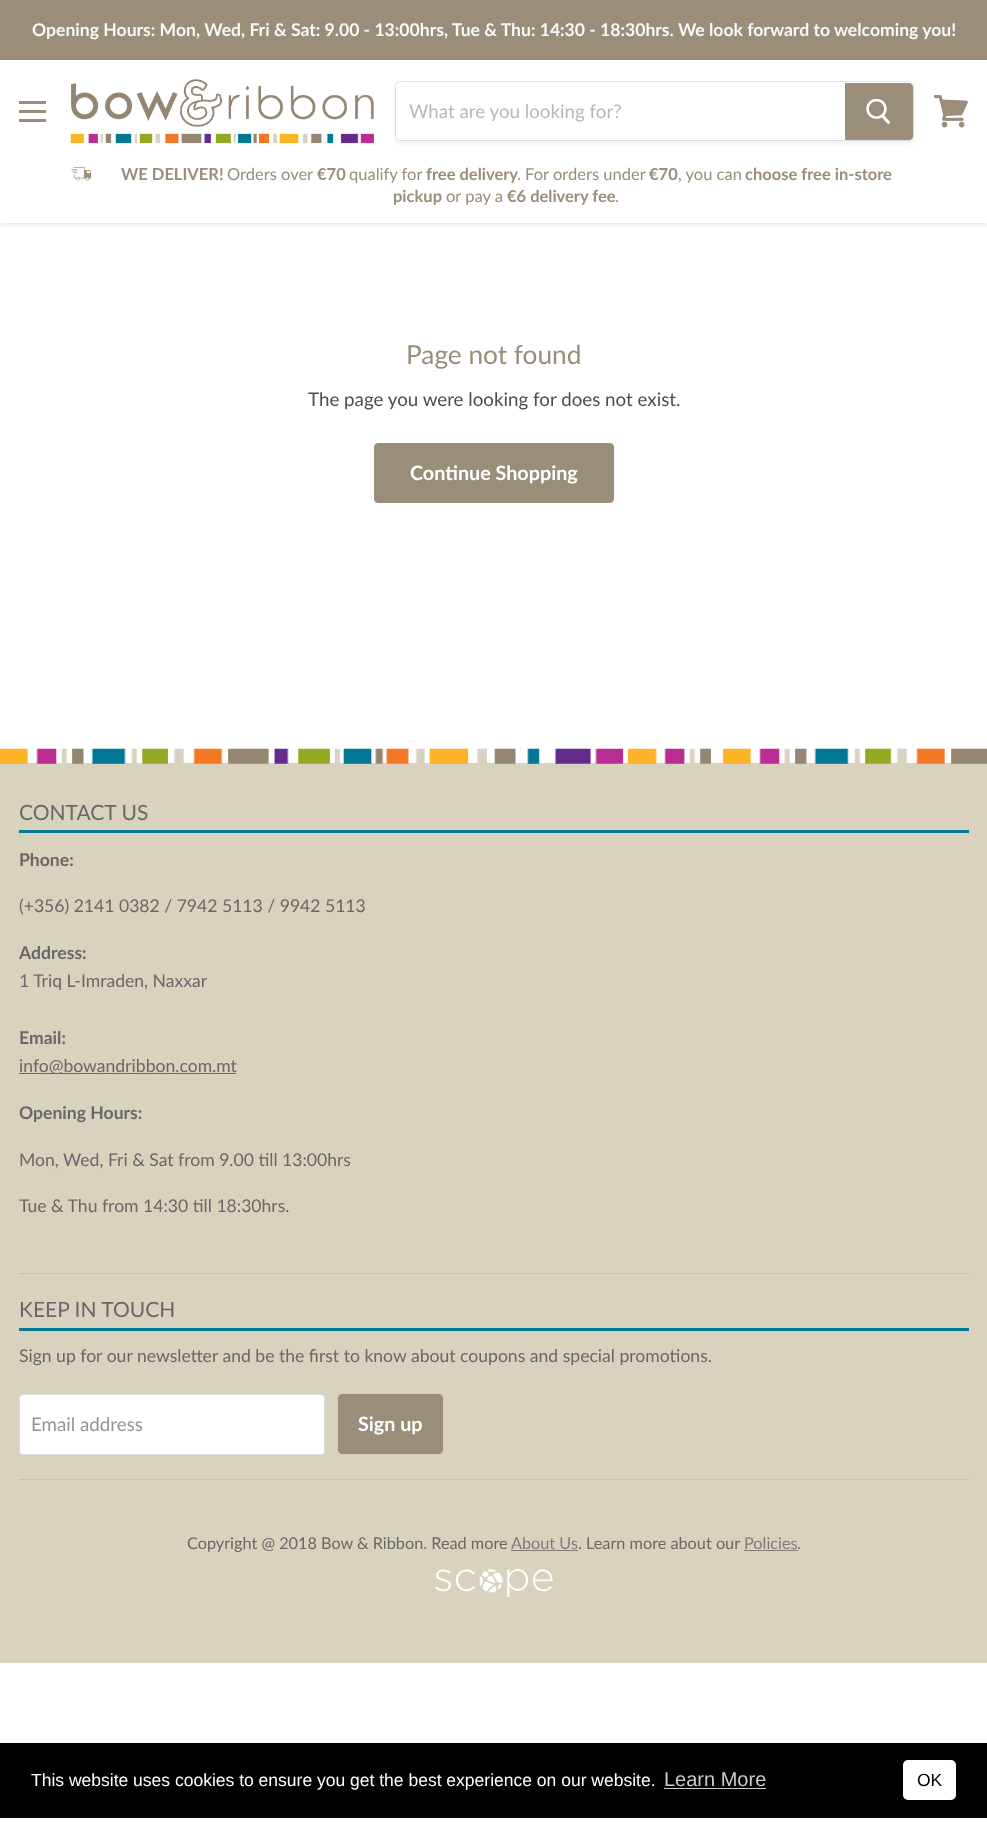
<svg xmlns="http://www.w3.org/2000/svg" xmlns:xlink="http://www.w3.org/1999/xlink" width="987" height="1835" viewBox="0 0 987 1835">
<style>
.cls-1{font:bold 17.58px Lato;fill:#f8f8f8}
.cls-2{font:18.75px Lato;fill:#b8b8b8}
.cls-3{font:bold 16.5px Lato;fill:#9a8d79}
.cls-4{font:16.5px Lato;fill:#9a8d79}
.cls-5{font:26.25px Lato;fill:#9a8d79}
.cls-6{font:18.75px Lato;fill:#4d4d4d}
.cls-7{font:bold 19.75px Lato;fill:#ffffff}
.cls-8{font:21px Lato;fill:#686868}
.cls-9{font:bold 17.58px Lato;fill:#686868}
.cls-10{font:17.58px Lato;fill:#686868}
.cls-11{font:18.75px Lato;fill:#949494}
.cls-12{font:16.25px Lato;fill:#686868}
.cls-13{font:16.25px Lato;fill:#7f7d79}
.cls-14{font:17.5px Liberation Sans;fill:#ffffff}
.cls-15{font:20px Liberation Sans;fill:#cccccc}
.cls-16{font:17.5px Liberation Sans;fill:#000000}
</style>
<rect width="100%" height="100%" fill="#ffffff"/>
<rect fill="#9a8d79" x="0" y="0" width="987" height="60"/>
<rect fill="#808080" fill-opacity="0.25" filter="blur(2.5px)" x="0" y="61" width="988" height="163"/>
<rect fill="#ffffff" x="0" y="60" width="987" height="163"/>
<rect fill="#9a8d79" x="19" y="101" width="27" height="3"/>
<rect fill="#9a8d79" x="19" y="110" width="27" height="3"/>
<rect fill="#9a8d79" x="19" y="119" width="27" height="3"/>
<image xlink:href="image0.png" x="70" y="79" width="304" height="65"/>
<rect fill="#808080" fill-opacity="0.11" filter="blur(2px)" x="395" y="84" width="519" height="60" rx="5"/>
<rect fill="none" stroke="#808080" stroke-opacity="0.2" x="395.5" y="81.5" width="518" height="59" rx="4.5"/>
<path fill="#ffffff" d="M400 83H845V140H400C398 140 396 138 396 136V87C396 85 398 83 400 83Z"/>
<path fill="#9a8d79" stroke="#9a8d79" d="M845.5 83.5H909C911 83.5 912.5 85 912.5 87V136C912.5 138 911 139.5 909 139.5H845.5Z"/>
<image xlink:href="image1.png" x="866" y="99" width="25" height="26"/>
<image xlink:href="image2.png" x="71" y="167" width="20" height="14"/>
<image xlink:href="image3.png" x="934" y="95" width="34" height="33"/>
<rect fill="#9a8d79" stroke="#9a8d79" x="374.5" y="443.5" width="239" height="59" rx="3.5"/>
<rect fill="#d9d2bf" x="0" y="763" width="987" height="900"/>
<image xlink:href="image4.png" x="0" y="748" width="987" height="16"/>
<rect fill="#c8c2b2" x="19" y="1273" width="950" height="1"/>
<rect fill="#017992" x="19" y="830" width="950" height="3"/>
<rect fill="#686868" x="19" y="1073" width="217" height="1"/>
<rect fill="#c8c2b2" x="19" y="1479" width="950" height="1"/>
<rect fill="#017992" x="19" y="1328" width="950" height="3"/>
<rect fill="#ffffff" stroke="#dddddd" x="19.5" y="1394.5" width="305" height="60" rx="3.5"/>
<rect fill="#9a8d79" stroke="#9a8d79" x="338.5" y="1394.5" width="104" height="59" rx="3.5"/>
<rect fill="#7f7d79" x="511" y="1550" width="67" height="1"/>
<rect fill="#7f7d79" x="744" y="1550" width="54" height="1"/>
<image xlink:href="image5.png" x="435" y="1569" width="118" height="28"/>
<rect fill="#000000" x="0" y="1743" width="987" height="75"/>
<rect fill="#cccccc" x="664" y="1788" width="102" height="1"/>
<rect fill="#ffffff" x="903" y="1760" width="53" height="40" rx="5"/>
<text class="cls-1" x="32" y="36">Opening Hours: Mon, Wed, Fri &amp; Sat: 9.00 - 13:00hrs, Tue &amp; Thu: 14:30 - 18:30hrs. We look forward to welcoming you!</text>
<text class="cls-2" x="409" y="118">What are you looking for?</text>
<text class="cls-3" x="121" y="180">WE DELIVER!</text>
<text class="cls-4" x="227" y="180">Orders over</text>
<text class="cls-3" x="317" y="180">€70</text>
<text class="cls-4" x="349" y="180">qualify for</text>
<text class="cls-3" x="426" y="180">free delivery</text>
<text class="cls-4" x="517" y="180">. For orders under</text>
<text class="cls-3" x="649" y="180">€70</text>
<text class="cls-4" x="678" y="180">, you can</text>
<text class="cls-3" x="745" y="180">choose free in-store</text>
<text class="cls-3" x="393" y="202">pickup</text>
<text class="cls-4" x="446" y="202">or pay a</text>
<text class="cls-3" x="507" y="202">€6 delivery fee</text>
<text class="cls-4" x="615" y="202">.</text>
<text class="cls-5" x="406" y="364">Page not found</text>
<text class="cls-6" x="308" y="406">The page you were looking for does not exist.</text>
<text class="cls-7" x="410" y="480">Continue Shopping</text>
<text class="cls-8" x="19" y="820">CONTACT US</text>
<text class="cls-9" x="19" y="866">Phone:</text>
<text class="cls-10" x="19" y="912">(+356) 2141 0382 / 7942 5113 / 9942 5113</text>
<text class="cls-9" x="19" y="959">Address:</text>
<text class="cls-10" x="19" y="987">1 Triq L-Imraden, Naxxar</text>
<text class="cls-9" x="19" y="1044">Email:</text>
<text class="cls-10" x="19" y="1072">info@bowandribbon.com.mt</text>
<text class="cls-9" x="19" y="1119">Opening Hours:</text>
<text class="cls-10" x="19" y="1166">Mon, Wed, Fri &amp; Sat from 9.00 till 13:00hrs</text>
<text class="cls-10" x="19" y="1212">Tue &amp; Thu from 14:30 till 18:30hrs.</text>
<text class="cls-8" x="19" y="1317">KEEP IN TOUCH</text>
<text class="cls-10" x="19" y="1362">Sign up for our newsletter and be the first to know about coupons and special promotions.</text>
<text class="cls-11" x="31" y="1431">Email address</text>
<text class="cls-7" x="358" y="1431">Sign up</text>
<text class="cls-12" x="187" y="1549">Copyright @ 2018 Bow &amp; Ribbon. Read more</text>
<text class="cls-13" x="511" y="1549">About Us</text>
<text class="cls-12" x="578" y="1549">. Learn more about our</text>
<text class="cls-13" x="744" y="1549">Policies</text>
<text class="cls-12" x="797" y="1549">.</text>
<text class="cls-14" x="31" y="1786">This website uses cookies to ensure you get the best experience on our website.</text>
<text class="cls-15" x="664" y="1786">Learn More</text>
<text class="cls-16" x="917" y="1786">OK</text>
</svg>
